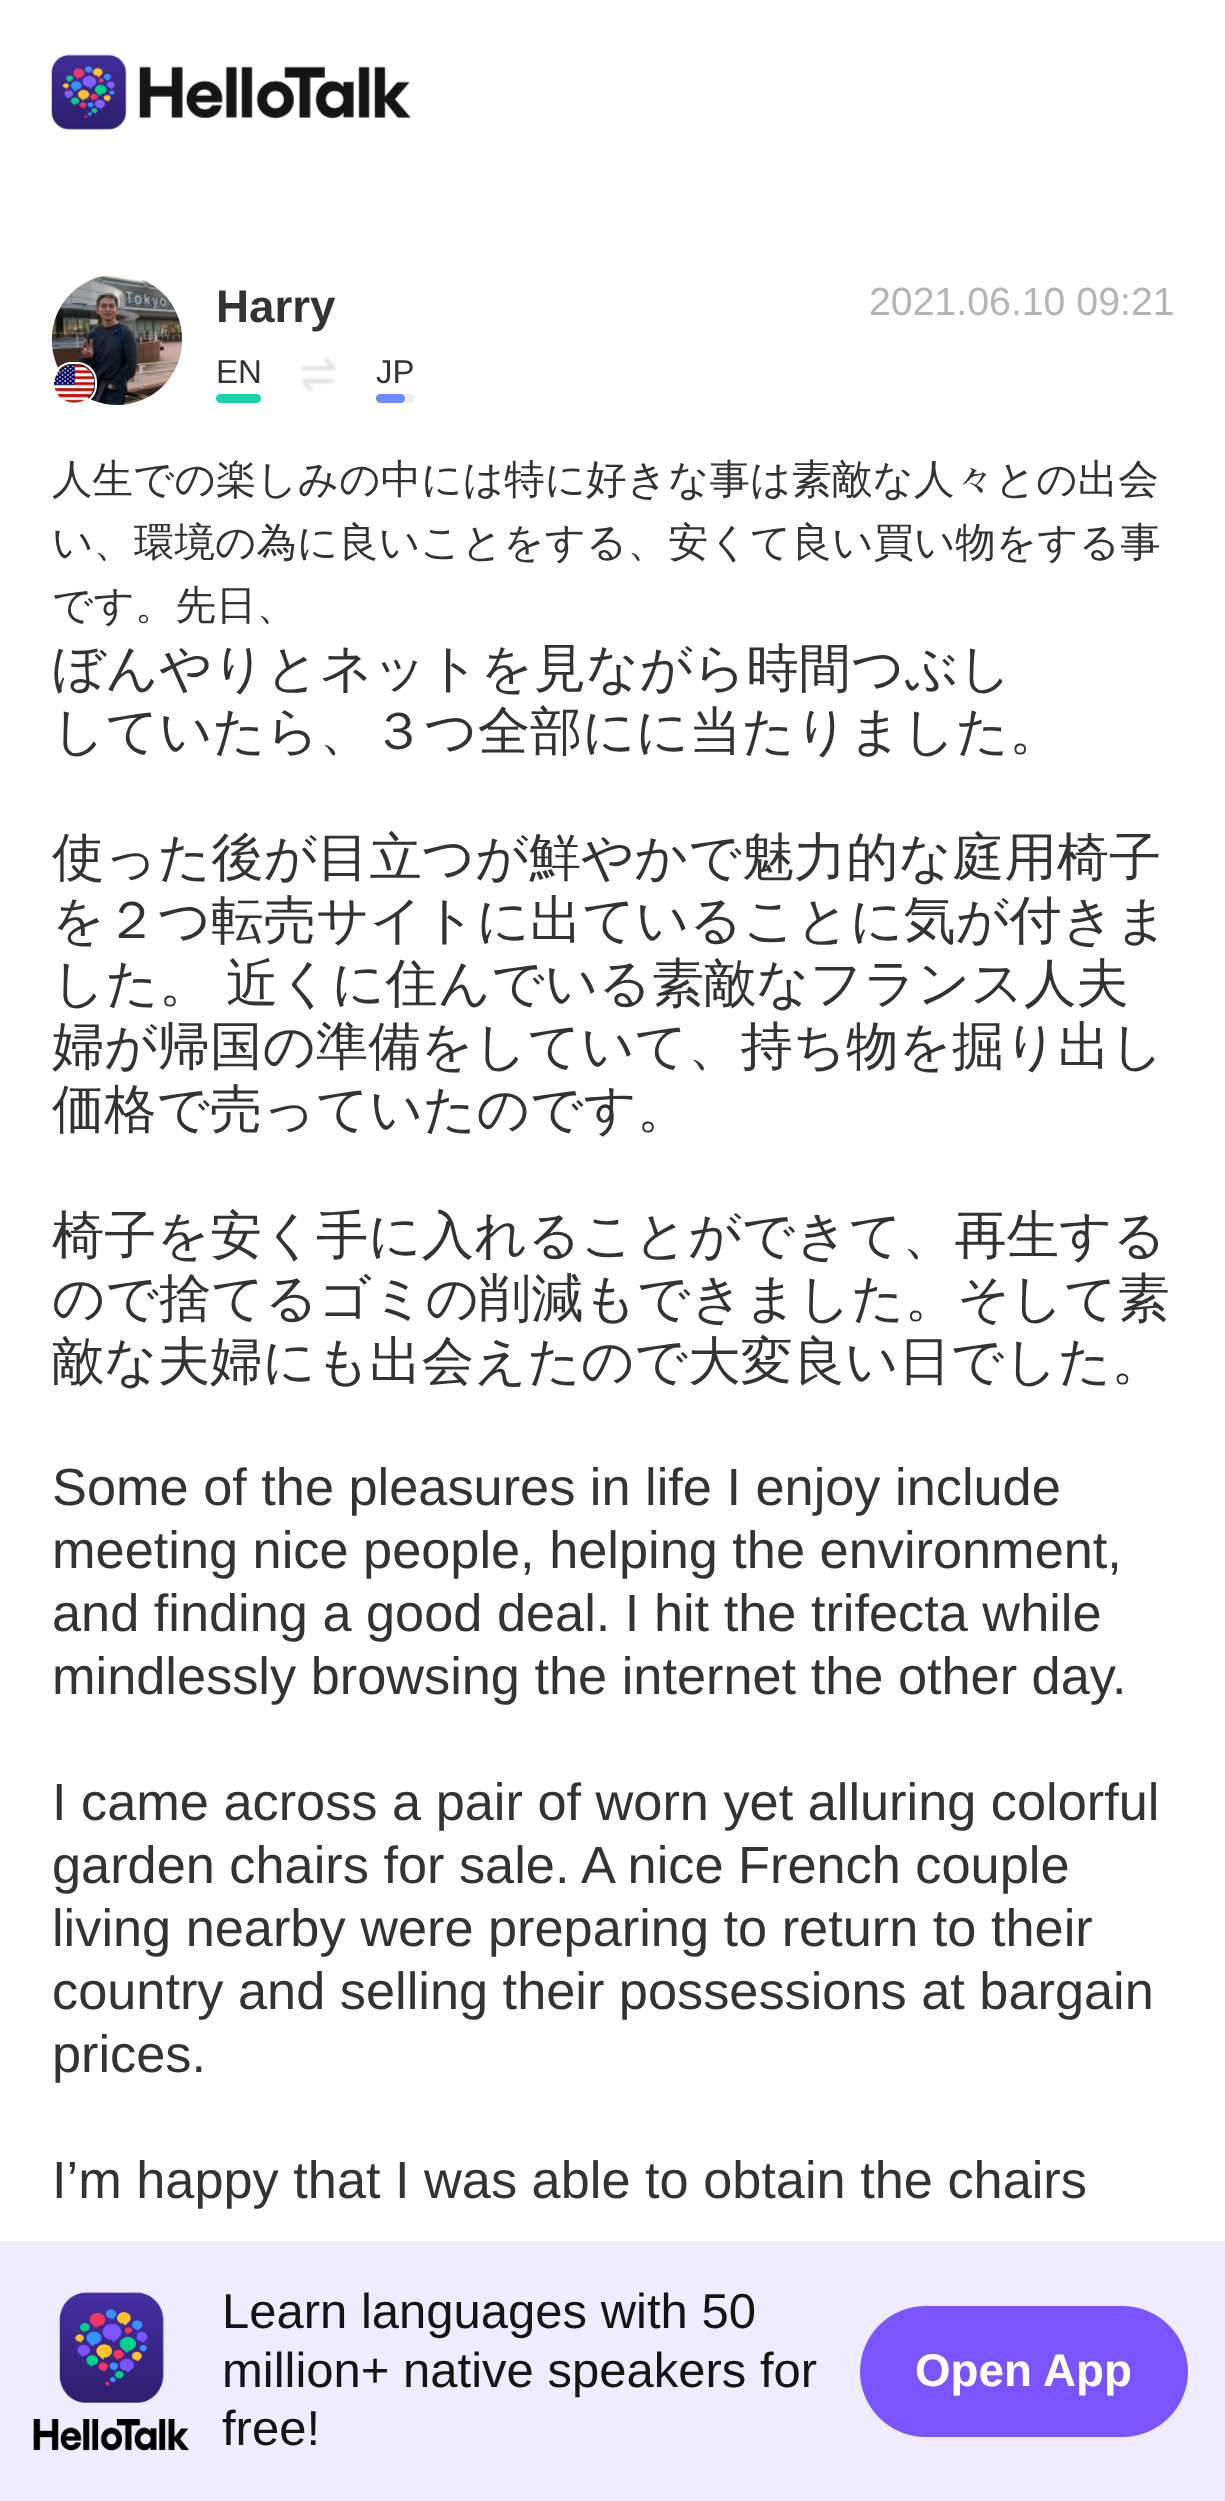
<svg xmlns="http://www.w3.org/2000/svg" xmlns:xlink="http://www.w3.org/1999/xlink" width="1225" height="2501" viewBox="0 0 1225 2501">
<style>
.cls-1{font:bold 45.75px Liberation Sans;fill:#333333}
.cls-2{font:33px Liberation Sans;fill:#333333}
.cls-3{font:39.25px Liberation Sans;fill:#b5b5b5}
.cls-4{font:500 40.5px WenQuanYi Zen Hei;fill:#333333}
.cls-5{font:500 52.3px WenQuanYi Zen Hei;fill:#333333}
.cls-6{font:52.3px Liberation Sans;fill:#333333}
.cls-7{font:49px Liberation Sans;fill:#151515}
.cls-8{font:bold 45.75px Liberation Sans;fill:#ffffff}
</style>
<rect width="100%" height="100%" fill="#ffffff"/>
<image xlink:href="image0.png" x="51" y="54" width="360" height="76"/>
<image xlink:href="image1.png" x="51" y="274" width="132" height="131"/>
<rect fill="none" stroke="#ffffff" stroke-width="2" x="53" y="363" width="43" height="41" rx="19"/>
<image xlink:href="image2.png" x="54" y="364" width="41" height="39"/>
<rect fill="#18d2aa" x="216" y="394" width="45" height="9" rx="4.5"/>
<image xlink:href="image3.png" x="301" y="357" width="35" height="35"/>
<rect fill="#ececec" x="376" y="394" width="38" height="9" rx="4.5"/>
<rect fill="#6d89ff" x="376" y="394" width="29" height="9" rx="4.5"/>
<rect fill="#efecff" x="0" y="2241" width="1225" height="260"/>
<image xlink:href="image4.png" x="33" y="2292" width="157" height="159"/>
<rect fill="#7a54ff" x="860" y="2306" width="328" height="131" rx="65.5"/>
<text class="cls-1" x="216" y="322">Harry</text>
<text class="cls-2" x="216" y="383">EN</text>
<text class="cls-2" x="376" y="383">JP</text>
<text class="cls-3" x="869" y="315">2021.06.10 09:21</text>
<text class="cls-4"><tspan x="52" y="493">人生での楽しみの中には特に好きな事は素敵な人々との出会</tspan><tspan x="52" y="556">い、環境の為に良いことをする、安くて良い買い物をする事</tspan><tspan x="52" y="619">です。先日、</tspan></text>
<text class="cls-5"><tspan x="52" y="686">ぼんやりとネットを見ながら時間つぶし</tspan><tspan x="52" y="749">していたら、３つ全部にに当たりました。</tspan></text>
<text class="cls-5"><tspan x="52" y="875">使った後が目立つが鮮やかで魅力的な庭用椅子</tspan><tspan x="52" y="938">を２つ転売サイトに出ていることに気が付きま</tspan><tspan x="52" y="1001" word-spacing="-1">した。 近くに住んでいる素敵なフランス人夫</tspan><tspan x="52" y="1064">婦が帰国の準備をしていて、持ち物を掘り出し</tspan><tspan x="52" y="1127">価格で売っていたのです。</tspan></text>
<text class="cls-5"><tspan x="52" y="1253">椅子を安く手に入れることができて、再生する</tspan><tspan x="52" y="1316">ので捨てるゴミの削減もできました。そして素</tspan><tspan x="52" y="1379">敵な夫婦にも出会えたので大変良い日でした。</tspan></text>
<text class="cls-6"><tspan x="52" y="1505">Some of the pleasures in life I enjoy include</tspan><tspan x="52" y="1568">meeting nice people, helping the environment,</tspan><tspan x="52" y="1631">and finding a good deal. I hit the trifecta while</tspan><tspan x="52" y="1694">mindlessly browsing the internet the other day.</tspan></text>
<text class="cls-6"><tspan x="52" y="1820">I came across a pair of worn yet alluring colorful</tspan><tspan x="52" y="1883">garden chairs for sale. A nice French couple</tspan><tspan x="52" y="1946">living nearby were preparing to return to their</tspan><tspan x="52" y="2009">country and selling their possessions at bargain</tspan><tspan x="52" y="2072">prices.</tspan></text>
<text class="cls-6" x="52" y="2198">I’m happy that I was able to obtain the chairs</text>
<text class="cls-7"><tspan x="222" y="2328">Learn languages with 50</tspan><tspan x="222" y="2387">million+ native speakers for</tspan><tspan x="222" y="2445">free!</tspan></text>
<text class="cls-8" x="915" y="2386">Open App</text>
</svg>
